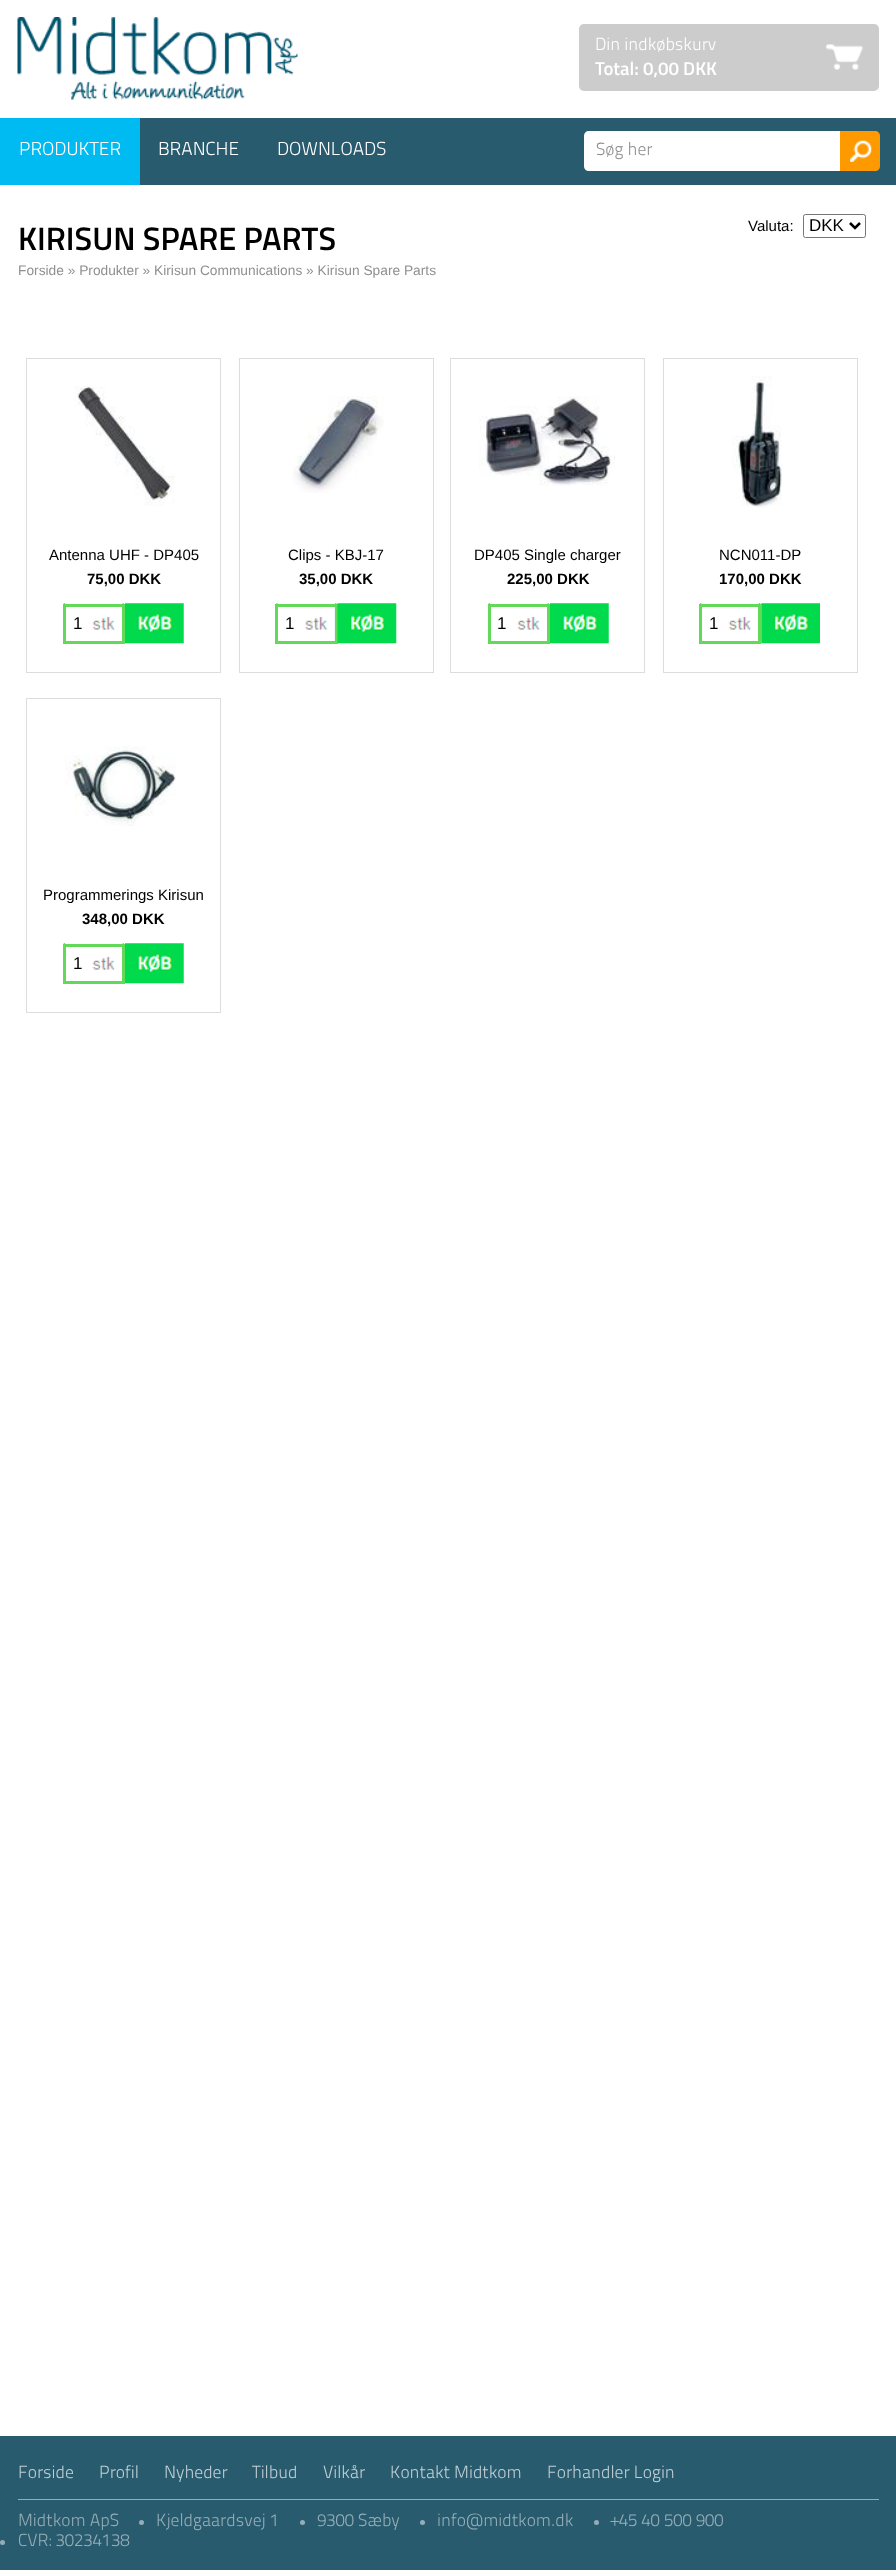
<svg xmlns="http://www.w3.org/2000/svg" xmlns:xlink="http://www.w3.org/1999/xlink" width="896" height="2570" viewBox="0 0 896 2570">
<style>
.cls-1{font:300 17.5px 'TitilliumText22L';fill:#ffffff}
.cls-2{font:600 18.75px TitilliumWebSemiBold;fill:#ffffff}
.cls-3{font:300 18.75px 'TitilliumText22L';fill:#ffffff}
.cls-4{font:300 17.5px 'TitilliumText22L';fill:#909090}
.cls-5{font:15px Liberation Sans;fill:#000000}
.cls-6{font:17px Liberation Sans;fill:#000000}
.cls-7{font:600 32.5px TitilliumWebSemiBold;fill:#000000}
.cls-8{font:13.75px Liberation Sans;fill:#909090}
.cls-9{font:bold 15px Liberation Sans;fill:#000000}
.cls-10{font:300 17.5px 'TitilliumText22L';fill:#bfced4}
.cls-11{font:300 17.5px 'TitilliumText22L';fill:#94adb7}
</style>
<rect width="100%" height="100%" fill="#ffffff"/>
<image xlink:href="image0.png" x="17" y="17" width="281" height="83"/>
<rect fill="#cccccc" x="579" y="24" width="300" height="67" rx="5"/>
<image xlink:href="image1.png" x="826" y="44" width="37" height="26"/>
<rect fill="#295b6e" x="140" y="118" width="756" height="67"/>
<rect fill="#00baf2" x="0" y="118" width="140" height="67"/>
<path fill="#ffffff" d="M589 131H844V171H589C586 171 584 169 584 166V136C584 133 586 131 589 131Z"/>
<path fill="#ff9900" d="M840 131H875C878 131 880 133 880 136V166C880 169 878 171 875 171H840Z"/>
<image xlink:href="image2.png" x="850" y="140" width="22" height="22"/>
<rect fill="none" stroke="#767676" x="803.5" y="214.5" width="62" height="23" rx="2"/>
<path fill="none" stroke="#000000" stroke-width="2.5" d="M850 223L855 228L860 223"/>
<rect fill="none" stroke="#dddddd" x="26.5" y="358.5" width="194" height="314"/>
<image xlink:href="image3.png" x="75" y="386" width="100" height="120"/>
<image xlink:href="image4.png" x="63" y="603" width="61" height="38"/>
<rect fill="none" stroke="#62d959" stroke-width="3" x="64.5" y="605.5" width="59" height="37"/>
<image xlink:href="image5.png" x="125" y="603" width="59" height="41"/>
<rect fill="none" stroke="#dddddd" x="239.5" y="358.5" width="194" height="314"/>
<image xlink:href="image6.png" x="291" y="396" width="93" height="97"/>
<image xlink:href="image7.png" x="276" y="603" width="61" height="38"/>
<rect fill="none" stroke="#62d959" stroke-width="3" x="276.5" y="605.5" width="60" height="37"/>
<image xlink:href="image8.png" x="337" y="603" width="60" height="41"/>
<rect fill="none" stroke="#dddddd" x="450.5" y="358.5" width="194" height="314"/>
<image xlink:href="image9.png" x="479" y="396" width="136" height="90"/>
<image xlink:href="image4.png" x="488" y="603" width="61" height="38"/>
<rect fill="none" stroke="#62d959" stroke-width="3" x="489.5" y="605.5" width="59" height="37"/>
<image xlink:href="image10.png" x="550" y="603" width="59" height="41"/>
<rect fill="none" stroke="#dddddd" x="663.5" y="358.5" width="194" height="314"/>
<image xlink:href="image11.png" x="732" y="376" width="50" height="132"/>
<image xlink:href="image12.png" x="699" y="603" width="62" height="38"/>
<rect fill="none" stroke="#62d959" stroke-width="3" x="700.5" y="605.5" width="59" height="37"/>
<image xlink:href="image13.png" x="761" y="603" width="59" height="41"/>
<rect fill="none" stroke="#dddddd" x="26.5" y="698.5" width="194" height="314"/>
<image xlink:href="image14.png" x="65" y="746" width="111" height="80"/>
<image xlink:href="image4.png" x="63" y="943" width="61" height="38"/>
<rect fill="none" stroke="#62d959" stroke-width="3" x="64.5" y="945.5" width="59" height="37"/>
<image xlink:href="image5.png" x="125" y="943" width="59" height="41"/>
<rect fill="#295b6e" x="0" y="2436" width="896" height="134"/>
<rect fill="#94adb7" x="18" y="2499" width="861" height="1"/>
<circle fill="#94adb7" cx="141.5" cy="2522.5" r="2.5"/>
<circle fill="#94adb7" cx="302.5" cy="2522.5" r="2.5"/>
<circle fill="#94adb7" cx="422.5" cy="2522.5" r="2.5"/>
<circle fill="#94adb7" cx="596.5" cy="2522.5" r="2.5"/>
<circle fill="#94adb7" cx="2.5" cy="2542.5" r="2.5"/>
<text class="cls-1" x="595" y="50">Din indkøbskurv</text>
<text class="cls-2" x="595" y="75">Total: 0,00 DKK</text>
<text class="cls-3" x="19" y="155">PRODUKTER</text>
<text class="cls-3" x="158" y="155">BRANCHE</text>
<text class="cls-3" x="277" y="155">DOWNLOADS</text>
<text class="cls-4" x="596" y="155">Søg her</text>
<text class="cls-5" x="748" y="231">Valuta:</text>
<text class="cls-6" x="809" y="231">DKK</text>
<text class="cls-7" x="18" y="250">KIRISUN SPARE PARTS</text>
<text class="cls-8" x="18" y="275">Forside » Produkter » Kirisun Communications » Kirisun Spare Parts</text>
<text class="cls-5" x="49" y="560">Antenna UHF - DP405</text>
<text class="cls-9" x="87" y="584">75,00 DKK</text>
<text class="cls-6" x="73" y="629">1</text>
<text class="cls-5" x="288" y="560">Clips - KBJ-17</text>
<text class="cls-9" x="299" y="584">35,00 DKK</text>
<text class="cls-6" x="285" y="629">1</text>
<text class="cls-5" x="474" y="560">DP405 Single charger</text>
<text class="cls-9" x="507" y="584">225,00 DKK</text>
<text class="cls-6" x="497" y="629">1</text>
<text class="cls-5" x="719" y="560">NCN011-DP</text>
<text class="cls-9" x="719" y="584">170,00 DKK</text>
<text class="cls-6" x="709" y="629">1</text>
<text class="cls-5" x="43" y="900">Programmerings Kirisun</text>
<text class="cls-9" x="82" y="924">348,00 DKK</text>
<text class="cls-6" x="73" y="969">1</text>
<text class="cls-10" x="18" y="2478">Forside</text>
<text class="cls-10" x="99" y="2478">Profil</text>
<text class="cls-10" x="164" y="2478">Nyheder</text>
<text class="cls-10" x="252" y="2478">Tilbud</text>
<text class="cls-10" x="323" y="2478">Vilkår</text>
<text class="cls-10" x="390" y="2478">Kontakt Midtkom</text>
<text class="cls-10" x="547" y="2478">Forhandler Login</text>
<text class="cls-11" x="18" y="2526">Midtkom ApS</text>
<text class="cls-11" x="156" y="2526">Kjeldgaardsvej 1</text>
<text class="cls-11" x="317" y="2526">9300 Sæby</text>
<text class="cls-11" x="437" y="2526">info@midtkom.dk</text>
<text class="cls-11" x="611" y="2526">+45 40 500 900</text>
<text class="cls-11" x="18" y="2546">CVR: 30234138</text>
</svg>
